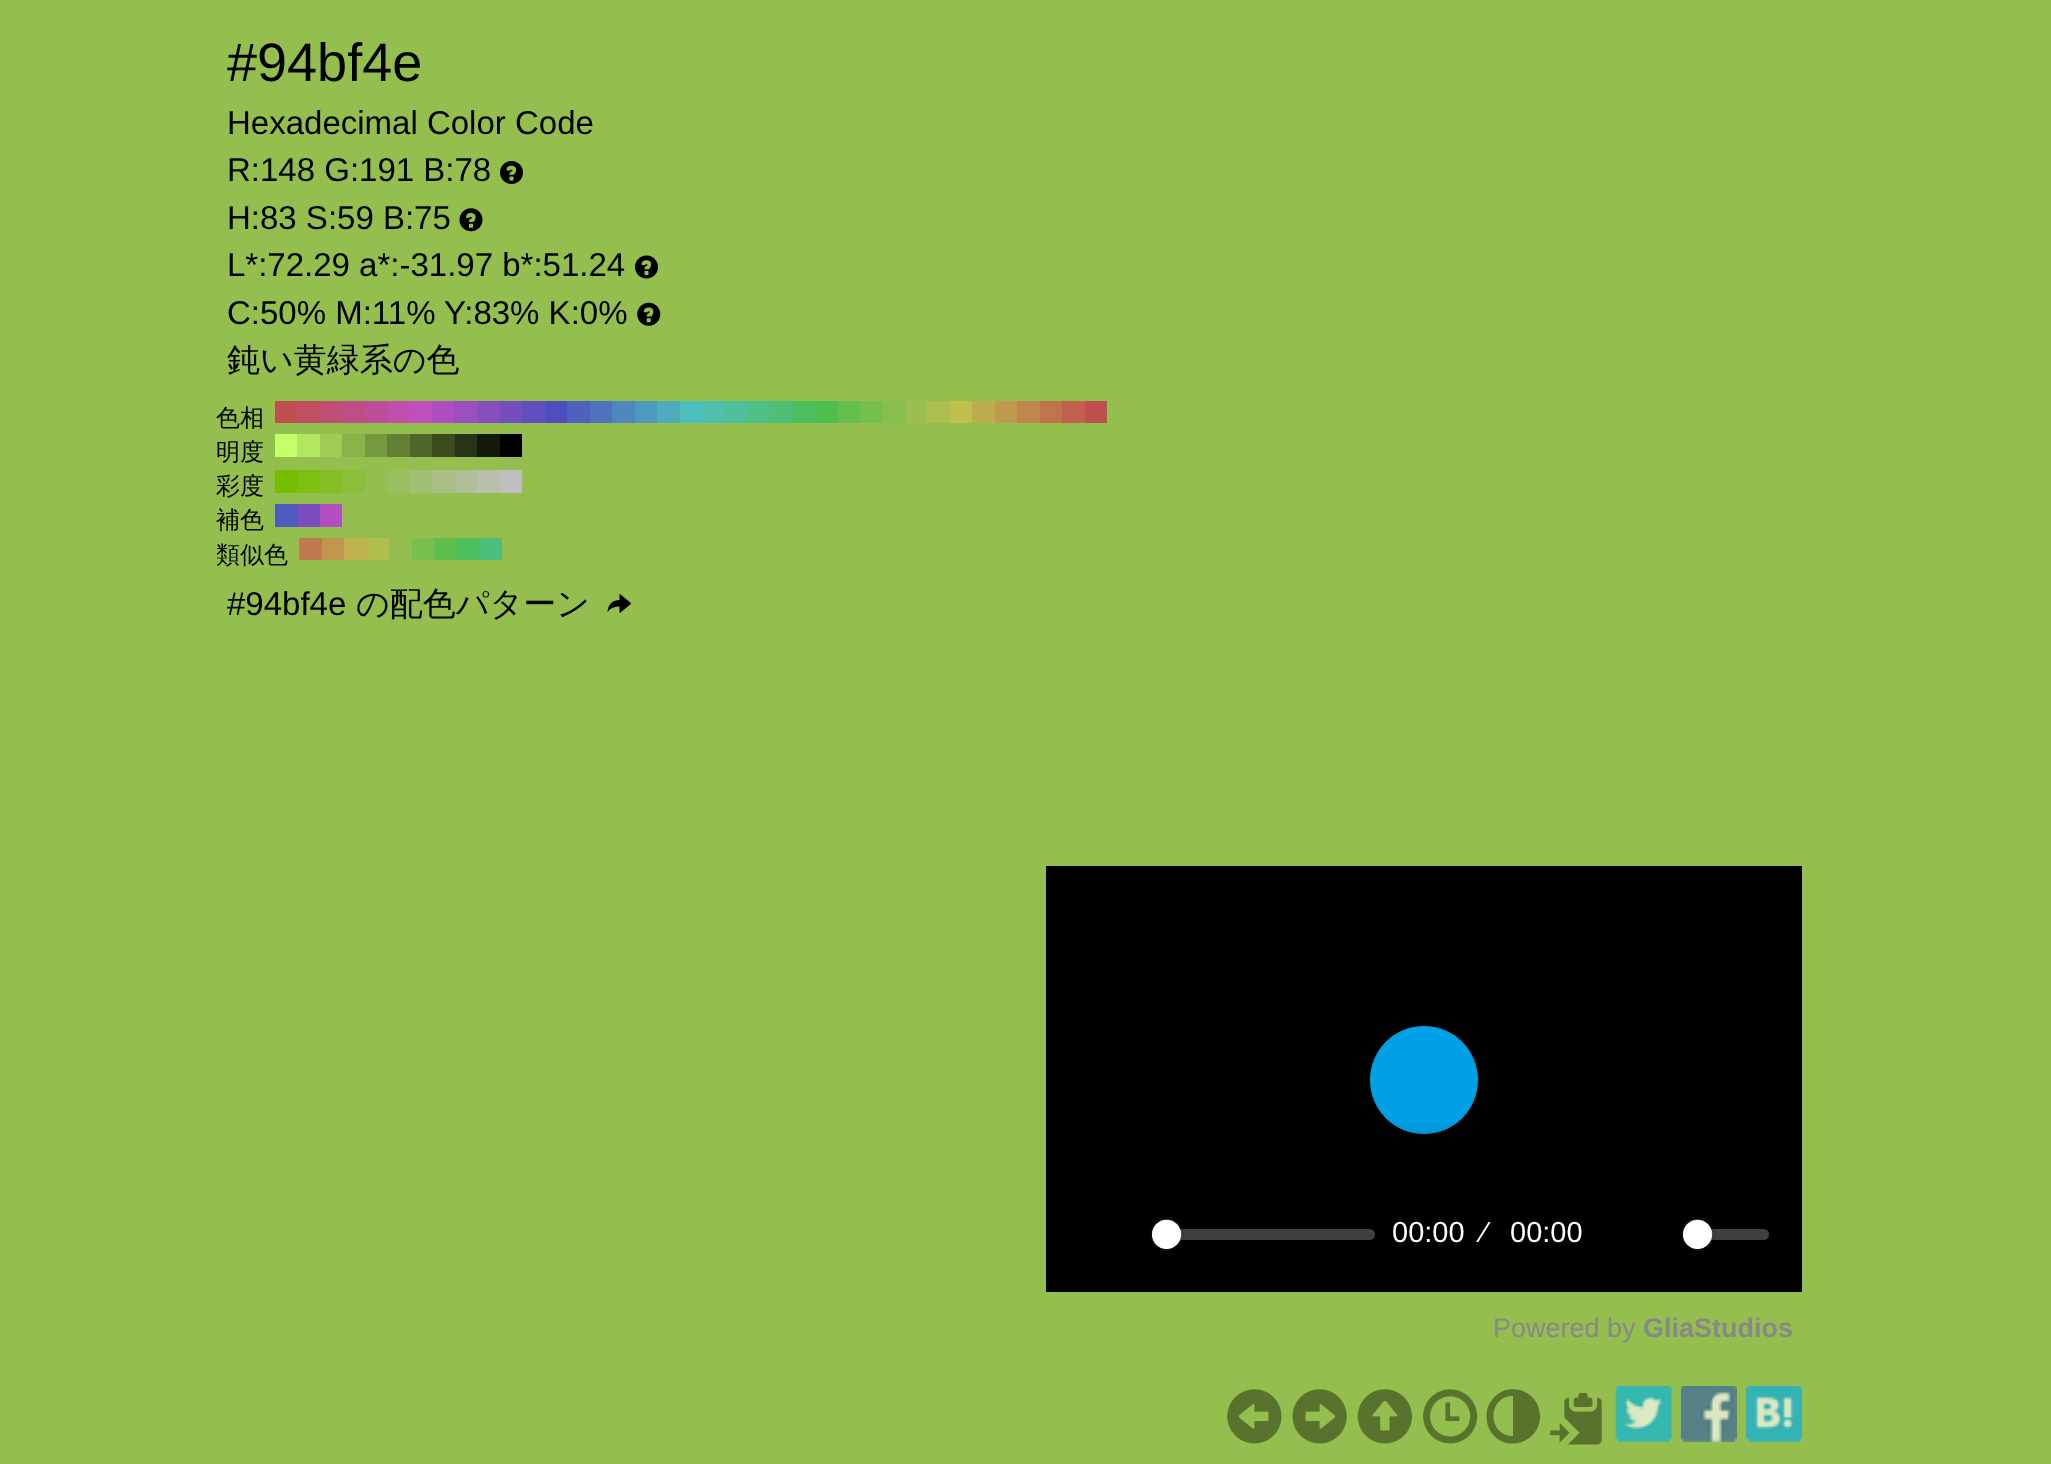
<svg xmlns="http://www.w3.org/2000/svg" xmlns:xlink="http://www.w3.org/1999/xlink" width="2051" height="1464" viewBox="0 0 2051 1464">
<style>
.cls-1{font:54px Liberation Sans;fill:#000000}
.cls-2{font:33px Liberation Sans;fill:#000000}
.cls-3{font:500 33px WenQuanYi Zen Hei;fill:#000000}
.cls-4{font:500 24px WenQuanYi Zen Hei;fill:#000000}
.cls-5{font:29px Liberation Sans;fill:#ffffff}
.cls-6{font:27px Liberation Sans;fill:#888888}
.cls-7{font:bold 27px Liberation Sans;fill:#888888}
</style>
<defs>
<linearGradient id="g1" gradientUnits="userSpaceOnUse" x1="1424" y1="1118" x2="1424" y2="1292"><stop offset="0" stop-color="#000000" stop-opacity="0"/><stop offset="1" stop-color="#000000" stop-opacity="0.75"/></linearGradient>
</defs>
<rect width="100%" height="100%" fill="#94bf4e"/>
<image xlink:href="image0.png" x="500" y="161" width="23" height="23"/>
<image xlink:href="image1.png" x="459" y="208" width="24" height="24"/>
<image xlink:href="image2.png" x="635" y="255" width="23" height="24"/>
<image xlink:href="image3.png" x="637" y="302" width="24" height="24"/>
<rect fill="#bf4e4e" x="275" y="401" width="22" height="22"/>
<rect fill="#bf4e61" x="297" y="401" width="23" height="22"/>
<rect fill="#bf4e74" x="320" y="401" width="22" height="22"/>
<rect fill="#bf4e87" x="342" y="401" width="23" height="22"/>
<rect fill="#bf4e9a" x="365" y="401" width="22" height="22"/>
<rect fill="#bf4eac" x="387" y="401" width="23" height="22"/>
<rect fill="#bf4ebf" x="410" y="401" width="22" height="22"/>
<rect fill="#ac4ebf" x="432" y="401" width="23" height="22"/>
<rect fill="#9a4ebf" x="455" y="401" width="22" height="22"/>
<rect fill="#874ebf" x="477" y="401" width="23" height="22"/>
<rect fill="#744ebf" x="500" y="401" width="22" height="22"/>
<rect fill="#614ebf" x="522" y="401" width="23" height="22"/>
<rect fill="#4e4ebf" x="545" y="401" width="22" height="22"/>
<rect fill="#4e61bf" x="567" y="401" width="23" height="22"/>
<rect fill="#4e74bf" x="590" y="401" width="22" height="22"/>
<rect fill="#4e87bf" x="612" y="401" width="23" height="22"/>
<rect fill="#4e9abf" x="635" y="401" width="22" height="22"/>
<rect fill="#4eacbf" x="657" y="401" width="23" height="22"/>
<rect fill="#4ebfbf" x="680" y="401" width="22" height="22"/>
<rect fill="#4ebfac" x="702" y="401" width="23" height="22"/>
<rect fill="#4ebf9a" x="725" y="401" width="22" height="22"/>
<rect fill="#4ebf87" x="747" y="401" width="23" height="22"/>
<rect fill="#4ebf74" x="770" y="401" width="22" height="22"/>
<rect fill="#4ebf61" x="792" y="401" width="23" height="22"/>
<rect fill="#4ebf4e" x="815" y="401" width="22" height="22"/>
<rect fill="#61bf4e" x="837" y="401" width="23" height="22"/>
<rect fill="#74bf4e" x="860" y="401" width="22" height="22"/>
<rect fill="#87bf4e" x="882" y="401" width="23" height="22"/>
<rect fill="#9abf4e" x="905" y="401" width="22" height="22"/>
<rect fill="#acbf4e" x="927" y="401" width="23" height="22"/>
<rect fill="#bfbf4e" x="950" y="401" width="22" height="22"/>
<rect fill="#bfac4e" x="972" y="401" width="23" height="22"/>
<rect fill="#bf9a4e" x="995" y="401" width="22" height="22"/>
<rect fill="#bf874e" x="1017" y="401" width="23" height="22"/>
<rect fill="#bf744e" x="1040" y="401" width="22" height="22"/>
<rect fill="#bf614e" x="1062" y="401" width="23" height="22"/>
<rect fill="#bf4e4e" x="1085" y="401" width="22" height="22"/>
<rect fill="#c5ff69" x="275" y="434" width="22" height="23"/>
<rect fill="#b2e65e" x="297" y="434" width="23" height="23"/>
<rect fill="#9ecc54" x="320" y="434" width="22" height="23"/>
<rect fill="#8ab349" x="342" y="434" width="23" height="23"/>
<rect fill="#76993f" x="365" y="434" width="22" height="23"/>
<rect fill="#638034" x="387" y="434" width="23" height="23"/>
<rect fill="#4f662a" x="410" y="434" width="22" height="23"/>
<rect fill="#3b4d1f" x="432" y="434" width="23" height="23"/>
<rect fill="#273315" x="455" y="434" width="22" height="23"/>
<rect fill="#141a0a" x="477" y="434" width="23" height="23"/>
<rect fill="#000000" x="500" y="434" width="22" height="23"/>
<rect fill="#76bf00" x="275" y="470" width="22" height="23"/>
<rect fill="#7dbf13" x="297" y="470" width="23" height="23"/>
<rect fill="#85bf26" x="320" y="470" width="22" height="23"/>
<rect fill="#8cbf39" x="342" y="470" width="23" height="23"/>
<rect fill="#9bbf60" x="387" y="470" width="23" height="23"/>
<rect fill="#a2bf73" x="410" y="470" width="22" height="23"/>
<rect fill="#a9bf86" x="432" y="470" width="23" height="23"/>
<rect fill="#b1bf99" x="455" y="470" width="22" height="23"/>
<rect fill="#b8bfac" x="477" y="470" width="23" height="23"/>
<rect fill="#bfbfbf" x="500" y="470" width="22" height="23"/>
<rect fill="#4e5cbf" x="275" y="504" width="22" height="23"/>
<rect fill="#7a4ebf" x="297" y="504" width="23" height="23"/>
<rect fill="#b24ebf" x="320" y="504" width="22" height="23"/>
<rect fill="#bf7a4e" x="299" y="538" width="23" height="22"/>
<rect fill="#bf964e" x="322" y="538" width="22" height="22"/>
<rect fill="#bfb24e" x="344" y="538" width="23" height="22"/>
<rect fill="#b0bf4e" x="367" y="538" width="22" height="22"/>
<rect fill="#78bf4e" x="412" y="538" width="22" height="22"/>
<rect fill="#5cbf4e" x="434" y="538" width="23" height="22"/>
<rect fill="#4ebf5d" x="457" y="538" width="22" height="22"/>
<rect fill="#4ebf7a" x="479" y="538" width="23" height="22"/>
<image xlink:href="image4.png" x="607" y="594" width="24" height="19"/>
<rect fill="#000000" x="1046" y="866" width="756" height="426"/>
<circle fill="#00a0e6" cx="1424" cy="1080" r="54"/>
<image xlink:href="image5.png" x="1150" y="1217" width="565" height="34"/>
<rect fill="url(#g1)" x="1150" y="1123" width="564" height="128"/>
<rect fill="#ffffff" fill-opacity="0.25" x="1152" y="1229" width="223" height="11" rx="5.5"/>
<circle fill="none" stroke="#23282f" stroke-opacity="0.2" stroke-width="2" cx="1167" cy="1234" r="16"/>
<rect fill="#23282f" fill-opacity="0.15" filter="blur(1px)" x="1152" y="1222" width="29" height="29" rx="14.5"/>
<circle fill="#ffffff" cx="1166.5" cy="1234.5" r="14.5"/>
<rect fill="#ffffff" fill-opacity="0.25" x="1683" y="1229" width="86" height="11" rx="5.5"/>
<circle fill="none" stroke="#23282f" stroke-opacity="0.2" stroke-width="2" cx="1698" cy="1234" r="16"/>
<rect fill="#23282f" fill-opacity="0.15" filter="blur(1px)" x="1683" y="1222" width="29" height="29" rx="14.5"/>
<circle fill="#ffffff" cx="1697.5" cy="1234.5" r="14.5"/>
<image xlink:href="image6.png" x="1227" y="1389" width="55" height="55"/>
<image xlink:href="image7.png" x="1292" y="1389" width="55" height="55"/>
<image xlink:href="image8.png" x="1357" y="1389" width="55" height="55"/>
<image xlink:href="image9.png" x="1423" y="1389" width="55" height="55"/>
<path fill="#59732f" d="M1503 1391C1508 1389 1514 1389 1520 1390C1545 1397 1547 1431 1524 1441C1518 1444 1512 1444 1506 1443C1482 1436 1479 1402 1503 1391ZM1513 1436V1396C1487 1396 1487 1436 1513 1436Z"/>
<image xlink:href="image10.png" x="1550" y="1392" width="52" height="53"/>
<image xlink:href="image11.png" x="1615" y="1386" width="57" height="57"/>
<image xlink:href="image12.png" x="1680" y="1386" width="57" height="57"/>
<image xlink:href="image13.png" x="1746" y="1386" width="57" height="57"/>
<text class="cls-1" x="227" y="81">#94bf4e</text>
<text class="cls-2"><tspan x="227" y="134">Hexadecimal Color Code</tspan><tspan x="227" y="181">R:148 G:191 B:78</tspan><tspan x="227" y="229">H:83 S:59 B:75</tspan><tspan x="227" y="276">L*:72.29 a*:-31.97 b*:51.24</tspan><tspan x="227" y="324">C:50% M:11% Y:83% K:0%</tspan></text>
<text class="cls-3" x="227" y="371">鈍い黄緑系の色</text>
<text class="cls-4"><tspan x="216" y="426">色相</tspan><tspan x="216" y="460">明度</tspan><tspan x="216" y="494">彩度</tspan><tspan x="216" y="528">補色</tspan><tspan x="216" y="563">類似色</tspan></text>
<text class="cls-2" x="227" y="615">#94bf4e</text>
<text class="cls-3" x="356" y="615">の配色パターン</text>
<text class="cls-5" x="1392" y="1242">00:00</text>
<text class="cls-5" x="1482" y="1242">⁄</text>
<text class="cls-5" x="1510" y="1242">00:00</text>
<text class="cls-6" x="1493" y="1337">Powered by</text>
<text class="cls-7" x="1643" y="1337">GliaStudios</text>
</svg>
